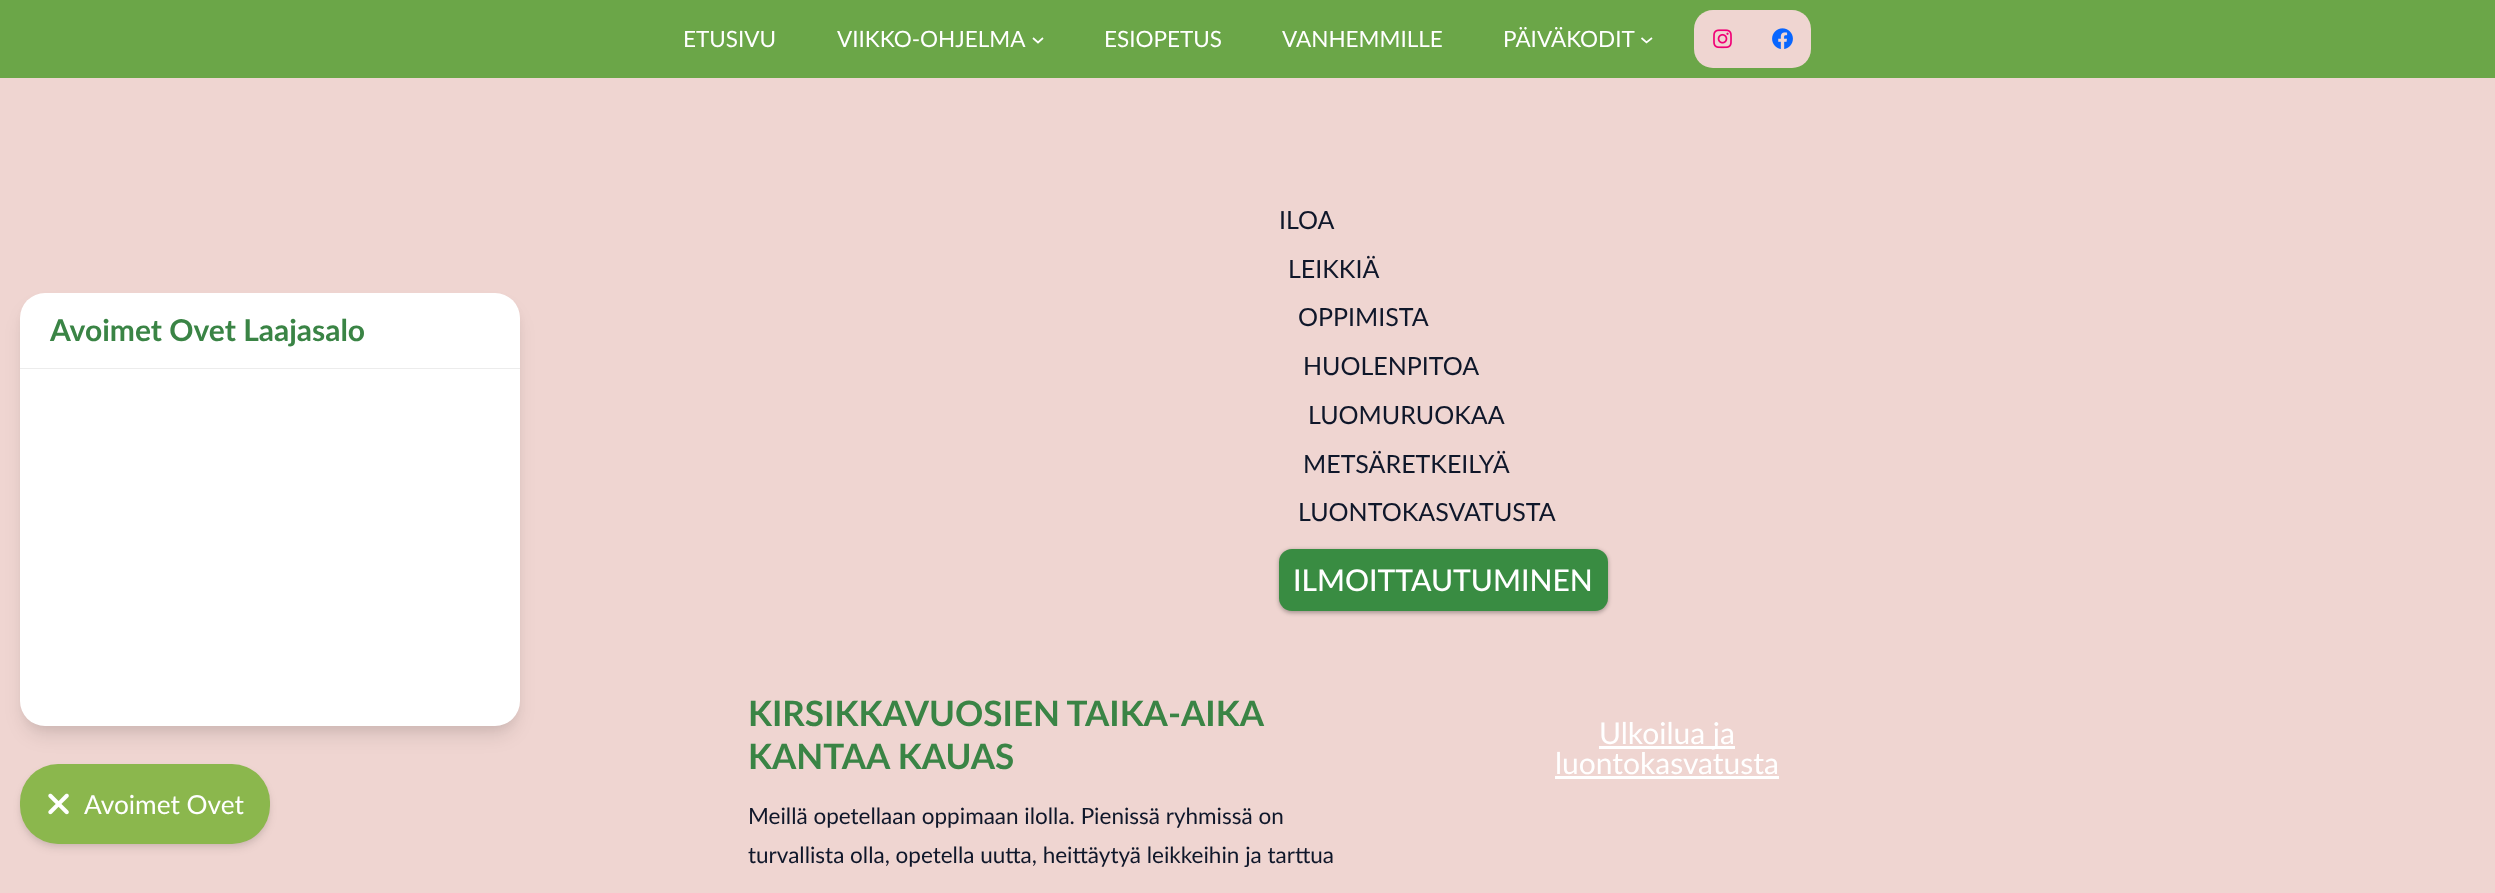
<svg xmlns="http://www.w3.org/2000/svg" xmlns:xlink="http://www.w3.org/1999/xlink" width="2495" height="893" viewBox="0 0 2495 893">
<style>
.cls-1{font:bold 30px Lato;fill:#3a8445}
.cls-2{font:26.25px Lato;fill:#ffffff}
.cls-3{font:22.5px Lato;fill:#ffffff}
.cls-4{font:25px Lato;fill:#0f172a}
.cls-5{font:500 30px Lato;fill:#ffffff}
.cls-6{font:bold 35px Lato;fill:#3a8445}
.cls-7{font:22.5px Lato;fill:#0f172a}
.cls-8{font:30px Lato;fill:#ffffff}
</style>
<rect width="100%" height="100%" fill="#efd5d1"/>
<rect fill="#000000" fill-opacity="0.05" filter="blur(4px)" x="23" y="300" width="495" height="429" rx="23"/>
<rect fill="#000000" fill-opacity="0.06" filter="blur(2.5px)" x="21" y="768" width="248" height="77" rx="36"/>
<rect fill="#000000" fill-opacity="0.1" filter="blur(4px)" x="21" y="770" width="248" height="78" rx="36"/>
<rect fill="#8bb74d" x="20" y="764" width="250" height="80" rx="38"/>
<rect fill="#000000" fill-opacity="0.1" filter="blur(9.5px)" x="24" y="309" width="492" height="426" rx="21"/>
<rect fill="#ffffff" x="20" y="293" width="500" height="433" rx="25"/>
<rect fill="#ececec" x="20" y="368" width="500" height="1"/>
<image xlink:href="image0.png" x="48" y="793" width="21" height="22"/>
<rect fill="#6ba648" x="0" y="0" width="2495" height="78"/>
<path fill="none" stroke="#ffffff" stroke-width="1.7" d="M1033 38L1038 42.5L1043 38"/>
<path fill="none" stroke="#ffffff" stroke-width="1.7" d="M1641.5 38L1646.5 42.5L1652 38"/>
<rect fill="#efd5d1" x="1694" y="10" width="117" height="58" rx="19"/>
<image xlink:href="image1.png" x="1713" y="29" width="19" height="20"/>
<image xlink:href="image2.png" x="1772" y="28" width="21" height="21"/>
<rect fill="#000000" fill-opacity="0.3" filter="blur(2px)" x="1279" y="550" width="329" height="63" rx="13"/>
<rect fill="#398c42" x="1279" y="549" width="329" height="62" rx="13"/>
<rect fill="#ffffff" x="1599" y="746" width="136" height="3"/>
<rect fill="#ffffff" x="1555" y="776" width="224" height="3"/>
<text class="cls-1" x="50" y="341">Avoimet Ovet Laajasalo</text>
<text class="cls-2" x="84" y="814">Avoimet Ovet</text>
<text class="cls-3" x="683" y="47">ETUSIVU</text>
<text class="cls-3" x="837" y="47">VIIKKO-OHJELMA</text>
<text class="cls-3" x="1104" y="47">ESIOPETUS</text>
<text class="cls-3" x="1282" y="47">VANHEMMILLE</text>
<text class="cls-3" x="1503" y="47">PÄIVÄKODIT</text>
<text class="cls-4" x="1279" y="229">ILOA</text>
<text class="cls-4" x="1288" y="278">LEIKKIÄ</text>
<text class="cls-4" x="1298" y="326">OPPIMISTA</text>
<text class="cls-4" x="1303" y="375">HUOLENPITOA</text>
<text class="cls-4" x="1308" y="424">LUOMURUOKAA</text>
<text class="cls-4" x="1303" y="473">METSÄRETKEILYÄ</text>
<text class="cls-4" x="1298" y="521">LUONTOKASVATUSTA</text>
<text class="cls-5" x="1293" y="591">ILMOITTAUTUMINEN</text>
<text class="cls-6"><tspan x="748" y="726" word-spacing="-1">KIRSIKKAVUOSIEN TAIKA-AIKA</tspan><tspan x="748" y="769">KANTAA KAUAS</tspan></text>
<text class="cls-7"><tspan x="748" y="824">Meillä opetellaan oppimaan ilolla. Pienissä ryhmissä on</tspan><tspan x="748" y="863">turvallista olla, opetella uutta, heittäytyä leikkeihin ja tarttua</tspan></text>
<text class="cls-8" x="1599" y="744">Ulkoilua ja</text>
<text class="cls-8" x="1555" y="774">luontokasvatusta</text>
</svg>
